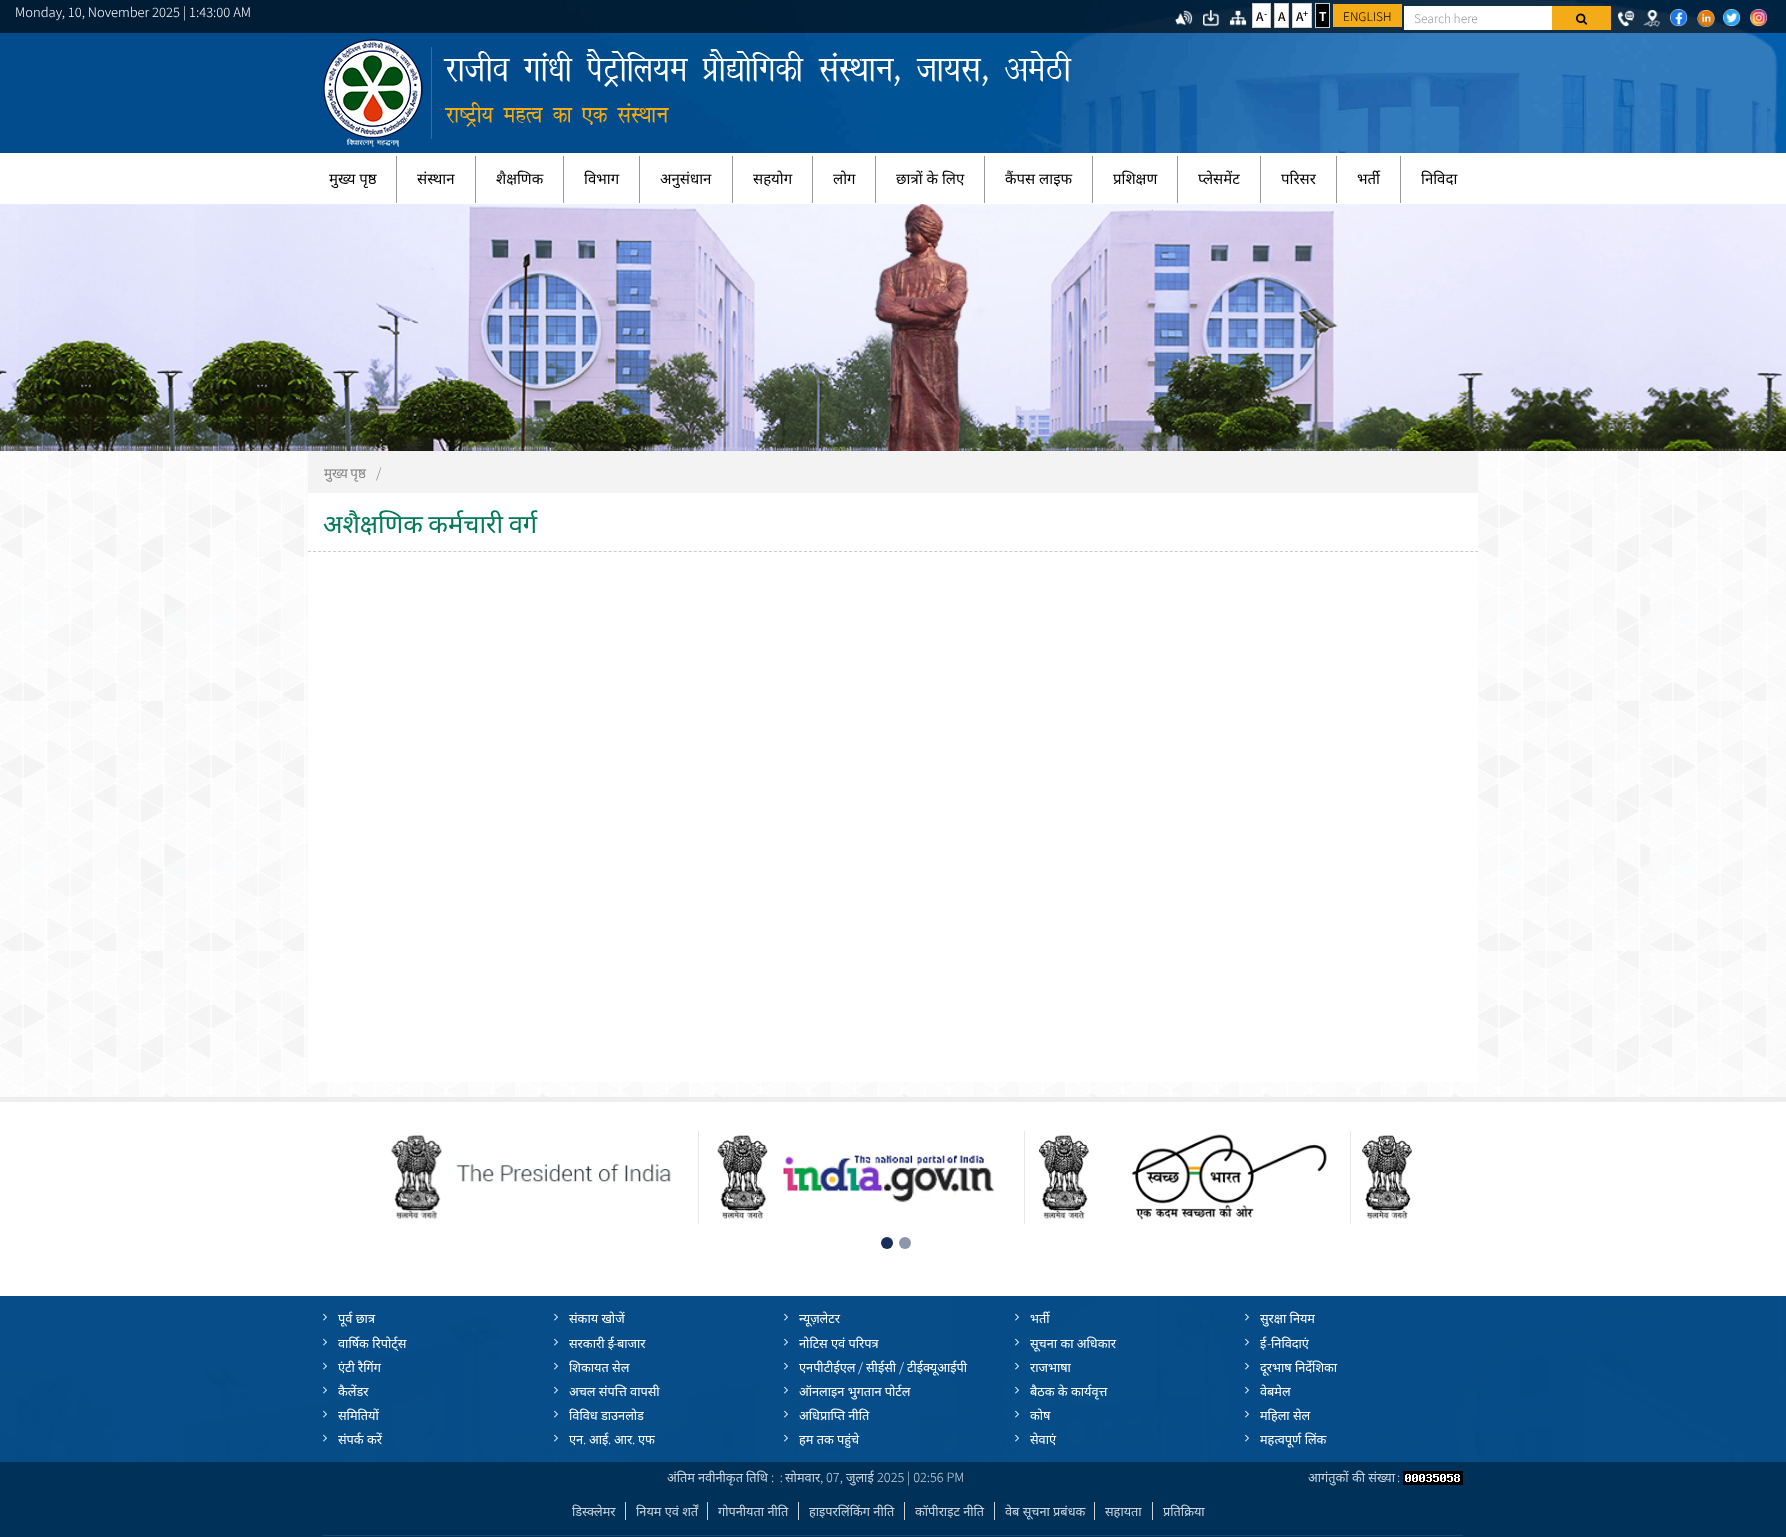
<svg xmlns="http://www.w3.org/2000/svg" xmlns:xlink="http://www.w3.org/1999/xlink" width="1786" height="1537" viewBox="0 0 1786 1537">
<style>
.cls-1{font:300 13px Noto Sans JP;fill:#ffffff}
.cls-2{font:500 12px Noto Sans JP;fill:#000000}
.cls-3{font:500 9px Noto Sans JP;fill:#000000}
.cls-4{font:bold 12px Noto Sans JP;fill:#ffffff}
.cls-5{font:300 12px Noto Sans JP;fill:#000000}
.cls-6{font:300 12px Noto Sans JP;fill:#999999}
.cls-7{font:15px Noto Sans;fill:#000000}
.cls-8{font:13.5px Noto Sans;fill:#828282}
.cls-9{font:300 13.5px Noto Sans JP;fill:#828282}
.cls-10{font:25.5px Noto Sans;fill:#027b52}
.cls-11{font:12.75px Noto Sans;fill:#ffffff}
.cls-12{font:300 12.75px Noto Sans JP;fill:#ffffff}
.cls-13{font:12.75px Noto Sans;fill:#cad4dc}
.cls-14{font:300 12.75px Noto Sans JP;fill:#cad4dc}
</style>
<rect width="100%" height="100%" fill="#ffffff"/>
<image xlink:href="image0.png" x="0" y="0" width="1786" height="153"/>
<rect fill="#000000" fill-opacity="0.62" x="0" y="0" width="1786" height="33"/>
<image xlink:href="image1.png" x="1175" y="10" width="18" height="16"/>
<image xlink:href="image2.png" x="1203" y="10" width="17" height="17"/>
<image xlink:href="image3.png" x="1230" y="10" width="17" height="16"/>
<rect fill="#ffffff" stroke="#cccccc" x="1252.5" y="3.5" width="18" height="24"/>
<rect fill="#ffffff" stroke="#cccccc" x="1274.5" y="3.5" width="14" height="24"/>
<rect fill="#ffffff" stroke="#cccccc" x="1292.5" y="3.5" width="19" height="24"/>
<rect fill="#000000" stroke="#cccccc" x="1315.5" y="3.5" width="14" height="24"/>
<rect fill="#f3ac17" x="1333" y="4" width="69" height="23"/>
<rect fill="#ffffff" x="1404" y="6" width="148" height="24"/>
<rect fill="#f3ac17" x="1552" y="6" width="59" height="24"/>
<image xlink:href="image4.png" x="1576" y="13" width="12" height="12"/>
<image xlink:href="image5.png" x="1618" y="10" width="17" height="17"/>
<image xlink:href="image6.png" x="1643" y="10" width="18" height="17"/>
<image xlink:href="image7.png" x="1670" y="9" width="18" height="18"/>
<image xlink:href="image8.png" x="1697" y="10" width="18" height="17"/>
<image xlink:href="image9.png" x="1723" y="9" width="18" height="18"/>
<image xlink:href="image10.png" x="1750" y="9" width="18" height="18"/>
<image xlink:href="image11.png" x="323" y="39" width="749" height="108"/>
<rect fill="#999999" x="396" y="156" width="1" height="47"/>
<rect fill="#999999" x="475" y="156" width="1" height="47"/>
<rect fill="#999999" x="563" y="156" width="1" height="47"/>
<rect fill="#999999" x="639" y="156" width="1" height="47"/>
<rect fill="#999999" x="732" y="156" width="1" height="47"/>
<rect fill="#999999" x="812" y="156" width="1" height="47"/>
<rect fill="#999999" x="875" y="156" width="1" height="47"/>
<rect fill="#999999" x="984" y="156" width="1" height="47"/>
<rect fill="#999999" x="1092" y="156" width="1" height="47"/>
<rect fill="#999999" x="1177" y="156" width="1" height="47"/>
<rect fill="#999999" x="1260" y="156" width="1" height="47"/>
<rect fill="#999999" x="1336" y="156" width="1" height="47"/>
<rect fill="#999999" x="1400" y="156" width="1" height="47"/>
<image xlink:href="image12.png" x="0" y="204" width="1786" height="247"/>
<image xlink:href="image13.png" x="0" y="451" width="1786" height="646"/>
<rect fill="#ffffff" x="308" y="493" width="1170" height="589"/>
<rect fill="#f3f3f3" x="308" y="451" width="1170" height="42"/>
<path fill="none" stroke="#cccccc" stroke-dasharray="3 2.01" d="M308 551.5H1478"/>
<rect fill="#eeeeee" x="0" y="1097" width="1786" height="5"/>
<rect fill="#e6e6e6" x="698" y="1131" width="1" height="93"/>
<image xlink:href="image14.png" x="391" y="1135" width="280" height="85"/>
<rect fill="#e6e6e6" x="1024" y="1131" width="1" height="93"/>
<image xlink:href="image15.png" x="717" y="1135" width="278" height="84"/>
<rect fill="#e6e6e6" x="1350" y="1131" width="1" height="93"/>
<image xlink:href="image16.png" x="1039" y="1134" width="288" height="86"/>
<image xlink:href="image17.png" x="1362" y="1135" width="50" height="84"/>
<circle fill="#192f59" cx="887" cy="1243" r="6"/>
<circle fill="#8c97ac" cx="905" cy="1243" r="6"/>
<image xlink:href="image18.png" x="0" y="1296" width="1786" height="166"/>
<image xlink:href="image19.png" x="323" y="1313" width="4" height="8"/>
<image xlink:href="image20.png" x="554" y="1313" width="4" height="8"/>
<image xlink:href="image21.png" x="784" y="1313" width="4" height="8"/>
<image xlink:href="image22.png" x="1015" y="1313" width="4" height="8"/>
<image xlink:href="image23.png" x="1245" y="1313" width="4" height="8"/>
<image xlink:href="image19.png" x="323" y="1338" width="4" height="8"/>
<image xlink:href="image20.png" x="554" y="1338" width="4" height="8"/>
<image xlink:href="image21.png" x="784" y="1338" width="4" height="8"/>
<image xlink:href="image24.png" x="1015" y="1338" width="4" height="8"/>
<image xlink:href="image23.png" x="1245" y="1338" width="4" height="8"/>
<image xlink:href="image19.png" x="323" y="1362" width="4" height="8"/>
<image xlink:href="image20.png" x="554" y="1362" width="4" height="8"/>
<image xlink:href="image21.png" x="784" y="1362" width="4" height="8"/>
<image xlink:href="image25.png" x="1015" y="1362" width="4" height="8"/>
<image xlink:href="image23.png" x="1245" y="1362" width="4" height="8"/>
<image xlink:href="image19.png" x="323" y="1386" width="4" height="8"/>
<image xlink:href="image26.png" x="554" y="1386" width="4" height="8"/>
<image xlink:href="image27.png" x="784" y="1386" width="4" height="8"/>
<image xlink:href="image28.png" x="1015" y="1386" width="4" height="8"/>
<image xlink:href="image23.png" x="1245" y="1386" width="4" height="8"/>
<image xlink:href="image29.png" x="323" y="1410" width="4" height="8"/>
<image xlink:href="image19.png" x="554" y="1410" width="4" height="8"/>
<image xlink:href="image30.png" x="784" y="1410" width="4" height="8"/>
<image xlink:href="image31.png" x="1015" y="1410" width="4" height="8"/>
<image xlink:href="image32.png" x="1245" y="1410" width="4" height="8"/>
<image xlink:href="image33.png" x="323" y="1434" width="4" height="8"/>
<image xlink:href="image34.png" x="554" y="1434" width="4" height="8"/>
<image xlink:href="image30.png" x="784" y="1434" width="4" height="8"/>
<image xlink:href="image35.png" x="1015" y="1434" width="4" height="8"/>
<image xlink:href="image36.png" x="1245" y="1434" width="4" height="8"/>
<rect fill="#003159" x="0" y="1462" width="1786" height="75"/>
<image xlink:href="image37.png" x="1403" y="1471" width="60" height="14"/>
<rect fill="#cad4dc" x="625" y="1502" width="1" height="18"/>
<rect fill="#cad4dc" x="707" y="1502" width="1" height="18"/>
<rect fill="#cad4dc" x="798" y="1502" width="1" height="18"/>
<rect fill="#cad4dc" x="904" y="1502" width="1" height="18"/>
<rect fill="#cad4dc" x="994" y="1502" width="1" height="18"/>
<rect fill="#cad4dc" x="1094" y="1502" width="1" height="18"/>
<rect fill="#cad4dc" x="1152" y="1502" width="1" height="18"/>
<rect fill="#194569" x="323" y="1535" width="1140" height="1"/>
<text class="cls-1" x="15" y="17">Monday, 10, November 2025 | 1:43:00 AM</text>
<text class="cls-2" x="1256" y="21">A</text>
<text class="cls-3" x="1264" y="17">-</text>
<text class="cls-2" x="1278" y="21">A</text>
<text class="cls-2" x="1296" y="21">A</text>
<text class="cls-3" x="1303" y="17">+</text>
<text class="cls-4" x="1319" y="21">T</text>
<text class="cls-5" x="1343" y="21">ENGLISH</text>
<text class="cls-6" x="1414" y="23">Search here</text>
<text class="cls-7" x="329" y="184">मुख्य पृष्ठ</text>
<text class="cls-7" x="417" y="184">संस्थान</text>
<text class="cls-7" x="496" y="184">शैक्षणिक</text>
<text class="cls-7" x="584" y="184">विभाग</text>
<text class="cls-7" x="660" y="184">अनुसंधान</text>
<text class="cls-7" x="753" y="184">सहयोग</text>
<text class="cls-7" x="833" y="184">लोग</text>
<text class="cls-7" x="896" y="184">छात्रों के लिए</text>
<text class="cls-7" x="1005" y="184">कैंपस लाइफ</text>
<text class="cls-7" x="1113" y="184">प्रशिक्षण</text>
<text class="cls-7" x="1198" y="184">प्लेसमेंट</text>
<text class="cls-7" x="1281" y="184">परिसर</text>
<text class="cls-7" x="1357" y="184">भर्ती</text>
<text class="cls-7" x="1421" y="184">निविदा</text>
<text class="cls-8" x="324" y="478" word-spacing="-1">मुख्य पृष्ठ</text>
<text class="cls-9" x="376" y="478">/</text>
<text class="cls-10" x="323" y="533" word-spacing="-1">अशैक्षणिक कर्मचारी वर्ग</text>
<text class="cls-11" x="338" y="1323">पूर्व छात्र</text>
<text class="cls-11" x="569" y="1323">संकाय खोजें</text>
<text class="cls-11" x="799" y="1323">न्यूज़लेटर</text>
<text class="cls-11" x="1030" y="1323">भर्ती</text>
<text class="cls-11" x="1260" y="1323">सुरक्षा नियम</text>
<text class="cls-11" x="338" y="1348">वार्षिक रिपोर्ट्स</text>
<text class="cls-11" x="569" y="1348">सरकारी ई</text>
<text class="cls-12" x="613" y="1348">-</text>
<text class="cls-11" x="617" y="1348">बाजार</text>
<text class="cls-11" x="799" y="1348">नोटिस एवं परिपत्र</text>
<text class="cls-11" x="1030" y="1348">सूचना का अधिकार</text>
<text class="cls-11" x="1260" y="1348">ई</text>
<text class="cls-12" x="1267" y="1348">-</text>
<text class="cls-11" x="1271" y="1348">निविदाएं</text>
<text class="cls-11" x="338" y="1372">एंटी रैगिंग</text>
<text class="cls-11" x="569" y="1372">शिकायत सेल</text>
<text class="cls-11" x="799" y="1372">एनपीटीईएल</text>
<text class="cls-12" x="858" y="1372">/</text>
<text class="cls-11" x="866" y="1372">सीईसी</text>
<text class="cls-12" x="899" y="1372">/</text>
<text class="cls-11" x="907" y="1372">टीईक्यूआईपी</text>
<text class="cls-11" x="1030" y="1372">राजभाषा</text>
<text class="cls-11" x="1260" y="1372">दूरभाष निर्देशिका</text>
<text class="cls-11" x="338" y="1396">कैलेंडर</text>
<text class="cls-11" x="569" y="1396">अचल संपत्ति वापसी</text>
<text class="cls-11" x="799" y="1396">ऑनलाइन भुगतान पोर्टल</text>
<text class="cls-11" x="1030" y="1396">बैठक के कार्यवृत्त</text>
<text class="cls-11" x="1260" y="1396">वेबमेल</text>
<text class="cls-11" x="338" y="1420">समितियों</text>
<text class="cls-11" x="569" y="1420">विविध डाउनलोड</text>
<text class="cls-11" x="799" y="1420">अधिप्राप्ति नीति</text>
<text class="cls-11" x="1030" y="1420">कोष</text>
<text class="cls-11" x="1260" y="1420">महिला सेल</text>
<text class="cls-11" x="338" y="1444">संपर्क करें</text>
<text class="cls-11" x="569" y="1444">एन</text>
<text class="cls-12" x="583" y="1444">.</text>
<text class="cls-11" x="589" y="1444">आई</text>
<text class="cls-12" x="608" y="1444">.</text>
<text class="cls-11" x="614" y="1444">आर</text>
<text class="cls-12" x="632" y="1444">.</text>
<text class="cls-11" x="638" y="1444">एफ</text>
<text class="cls-11" x="799" y="1444">हम तक पहुंचे</text>
<text class="cls-11" x="1030" y="1444">सेवाएं</text>
<text class="cls-11" x="1260" y="1444">महत्वपूर्ण लिंक</text>
<text class="cls-13" x="667" y="1482">अंतिम</text>
<text class="cls-13" x="698" y="1482">नवीनीकृत</text>
<text class="cls-13" x="746" y="1482">तिथि</text>
<text class="cls-14" xml:space="preserve" x="771" y="1482">:  :</text>
<text class="cls-13" x="785" y="1482">सोमवार</text>
<text class="cls-14" x="820" y="1482">, 07,</text>
<text class="cls-13" x="846" y="1482">जुलाई</text>
<text class="cls-14" x="877" y="1482">2025 | 02:56 PM</text>
<text class="cls-13" x="1308" y="1482">आगंतुकों की संख्या</text>
<text class="cls-14" x="1397" y="1482">:</text>
<text class="cls-13" x="572" y="1516">डिस्क्लेमर</text>
<text class="cls-13" x="636" y="1516">नियम एवं शर्तें</text>
<text class="cls-13" x="718" y="1516">गोपनीयता नीति</text>
<text class="cls-13" x="809" y="1516">हाइपरलिंकिंग नीति</text>
<text class="cls-13" x="915" y="1516">कॉपीराइट नीति</text>
<text class="cls-13" x="1005" y="1516">वेब सूचना प्रबंधक</text>
<text class="cls-13" x="1105" y="1516">सहायता</text>
<text class="cls-13" x="1163" y="1516">प्रतिक्रिया</text>
</svg>
